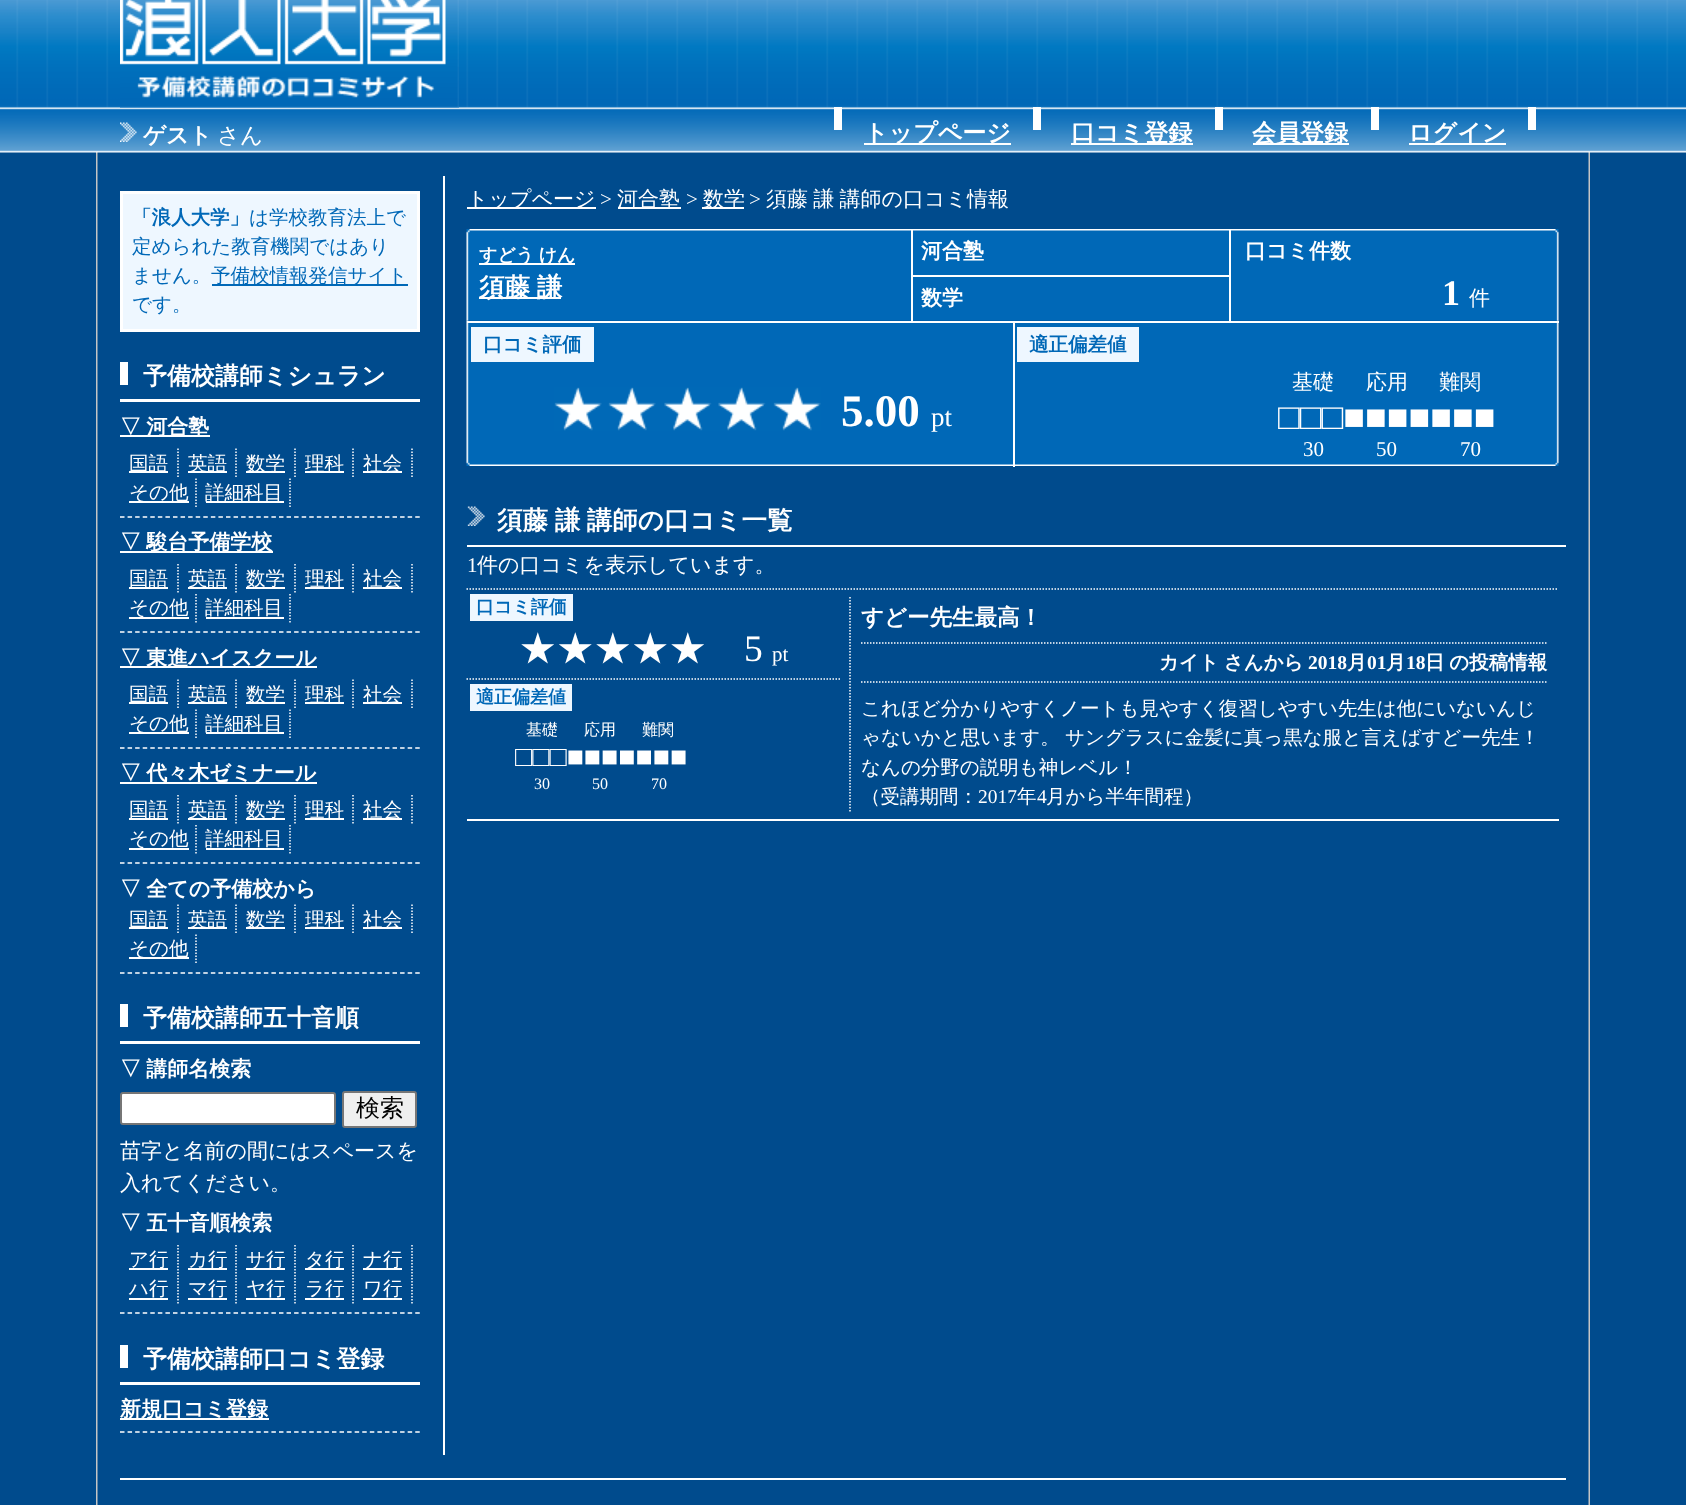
<svg xmlns="http://www.w3.org/2000/svg" xmlns:xlink="http://www.w3.org/1999/xlink" width="1686" height="1505" viewBox="0 0 1686 1505">
<style>
.cls-1{font:bold 22.5px WenQuanYi Zen Hei;fill:#ffffff}
.cls-2{font:500 22.5px WenQuanYi Zen Hei;fill:#ffffff}
.cls-3{font:bold 24px WenQuanYi Zen Hei;fill:#ffffff}
.cls-4{font:bold 19.5px WenQuanYi Zen Hei;fill:#0068b7}
.cls-5{font:500 19.5px WenQuanYi Zen Hei;fill:#0068b7}
.cls-6{font:bold 21px WenQuanYi Zen Hei;fill:#ffffff}
.cls-7{font:500 19.5px WenQuanYi Zen Hei;fill:#ffffff}
.cls-8{font:500 24px WenQuanYi Zen Hei;fill:#000000}
.cls-9{font:500 21px WenQuanYi Zen Hei;fill:#ffffff}
.cls-10{font:21px Liberation Serif;fill:#ffffff}
.cls-11{font:bold 18px WenQuanYi Zen Hei;fill:#ffffff}
.cls-12{font:bold 25.5px WenQuanYi Zen Hei;fill:#ffffff}
.cls-13{font:bold 36px Liberation Serif;fill:#ffffff}
.cls-14{font:bold 45px Liberation Serif;fill:#ffffff}
.cls-15{font:27px Liberation Serif;fill:#ffffff}
.cls-16{font:36px Liberation Serif;fill:#ffffff}
.cls-17{font:bold 18px WenQuanYi Zen Hei;fill:#0068b7}
.cls-18{font:500 37.5px WenQuanYi Zen Hei;fill:#ffffff}
.cls-19{font:37.5px Liberation Serif;fill:#ffffff}
.cls-20{font:500 16px WenQuanYi Zen Hei;fill:#ffffff}
.cls-21{font:28.5px Liberation Serif;fill:#ffffff}
.cls-22{font:16px Liberation Serif;fill:#ffffff}
.cls-23{font:bold 19.5px WenQuanYi Zen Hei;fill:#ffffff}
.cls-24{font:bold 19.5px Liberation Serif;fill:#ffffff}
.cls-25{font:19.5px Liberation Serif;fill:#ffffff}
</style>
<rect width="100%" height="100%" fill="#004b8d"/>
<image xlink:href="image0.png" x="96" y="152" width="1494" height="1353"/>
<image xlink:href="image1.png" x="0" y="0" width="1686" height="153"/>
<image xlink:href="image2.png" x="120" y="0" width="339" height="108"/>
<image xlink:href="image3.png" x="120" y="122" width="17" height="20"/>
<rect fill="#ffffff" x="834" y="107" width="8" height="23"/>
<rect fill="#ffffff" x="1033" y="107" width="8" height="23"/>
<rect fill="#ffffff" x="864" y="143" width="147" height="2"/>
<rect fill="#ffffff" x="1215" y="107" width="8" height="23"/>
<rect fill="#ffffff" x="1071" y="143" width="122" height="2"/>
<rect fill="#ffffff" x="1371" y="107" width="8" height="23"/>
<rect fill="#ffffff" x="1253" y="143" width="96" height="2"/>
<rect fill="#ffffff" x="1528" y="107" width="8" height="23"/>
<rect fill="#ffffff" x="1409" y="143" width="97" height="2"/>
<rect fill="#ffffff" x="443" y="176" width="2" height="1279"/>
<rect fill="#eef7ff" stroke="#ffffff" stroke-width="3" x="121.5" y="192.5" width="297" height="138"/>
<rect fill="#0068b7" x="212" y="284" width="196" height="2"/>
<rect fill="#ffffff" x="120" y="362" width="8" height="23"/>
<rect fill="#ffffff" x="120" y="399" width="300" height="3"/>
<rect fill="#ffffff" x="120" y="435" width="90" height="2"/>
<path fill="none" stroke="#ffffff" stroke-width="1.5" stroke-dasharray="4.5 3.07" d="M120 517H420"/>
<path fill="none" stroke="#ffffff" stroke-width="1.5" stroke-dasharray="1.5 1.5" d="M178 448.5V478.5"/>
<rect fill="#ffffff" x="129" y="471" width="39" height="2"/>
<path fill="none" stroke="#ffffff" stroke-width="1.5" stroke-dasharray="1.5 1.5" d="M236 448.5V478.5"/>
<rect fill="#ffffff" x="188" y="471" width="39" height="2"/>
<path fill="none" stroke="#ffffff" stroke-width="1.5" stroke-dasharray="1.5 1.5" d="M295 448.5V478.5"/>
<rect fill="#ffffff" x="246" y="471" width="39" height="2"/>
<path fill="none" stroke="#ffffff" stroke-width="1.5" stroke-dasharray="1.5 1.5" d="M353 448.5V478.5"/>
<rect fill="#ffffff" x="305" y="471" width="39" height="2"/>
<path fill="none" stroke="#ffffff" stroke-width="1.5" stroke-dasharray="1.5 1.5" d="M412 448.5V478.5"/>
<rect fill="#ffffff" x="363" y="471" width="39" height="2"/>
<path fill="none" stroke="#ffffff" stroke-width="1.5" stroke-dasharray="1.5 1.5" d="M196 478.5V507"/>
<rect fill="#ffffff" x="129" y="501" width="60" height="2"/>
<path fill="none" stroke="#ffffff" stroke-width="1.5" stroke-dasharray="1.5 1.5" d="M290 478.5V507"/>
<rect fill="#ffffff" x="206" y="501" width="78" height="2"/>
<rect fill="#ffffff" x="120" y="551" width="153" height="2"/>
<path fill="none" stroke="#ffffff" stroke-width="1.5" stroke-dasharray="4.5 3.07" d="M120 632H420"/>
<path fill="none" stroke="#ffffff" stroke-width="1.5" stroke-dasharray="1.5 1.5" d="M178 564V594"/>
<rect fill="#ffffff" x="129" y="587" width="39" height="2"/>
<path fill="none" stroke="#ffffff" stroke-width="1.5" stroke-dasharray="1.5 1.5" d="M236 564V594"/>
<rect fill="#ffffff" x="188" y="587" width="39" height="2"/>
<path fill="none" stroke="#ffffff" stroke-width="1.5" stroke-dasharray="1.5 1.5" d="M295 564V594"/>
<rect fill="#ffffff" x="246" y="587" width="39" height="2"/>
<path fill="none" stroke="#ffffff" stroke-width="1.5" stroke-dasharray="1.5 1.5" d="M353 564V594"/>
<rect fill="#ffffff" x="305" y="587" width="39" height="2"/>
<path fill="none" stroke="#ffffff" stroke-width="1.5" stroke-dasharray="1.5 1.5" d="M412 564V594"/>
<rect fill="#ffffff" x="363" y="587" width="39" height="2"/>
<path fill="none" stroke="#ffffff" stroke-width="1.5" stroke-dasharray="1.5 1.5" d="M196 594V622.5"/>
<rect fill="#ffffff" x="129" y="617" width="60" height="2"/>
<path fill="none" stroke="#ffffff" stroke-width="1.5" stroke-dasharray="1.5 1.5" d="M290 594V622.5"/>
<rect fill="#ffffff" x="206" y="617" width="78" height="2"/>
<rect fill="#ffffff" x="120" y="666" width="197" height="2"/>
<path fill="none" stroke="#ffffff" stroke-width="1.5" stroke-dasharray="4.5 3.07" d="M120 748H420"/>
<path fill="none" stroke="#ffffff" stroke-width="1.5" stroke-dasharray="1.5 1.5" d="M178 679.5V709.5"/>
<rect fill="#ffffff" x="129" y="702" width="39" height="2"/>
<path fill="none" stroke="#ffffff" stroke-width="1.5" stroke-dasharray="1.5 1.5" d="M236 679.5V709.5"/>
<rect fill="#ffffff" x="188" y="702" width="39" height="2"/>
<path fill="none" stroke="#ffffff" stroke-width="1.5" stroke-dasharray="1.5 1.5" d="M295 679.5V709.5"/>
<rect fill="#ffffff" x="246" y="702" width="39" height="2"/>
<path fill="none" stroke="#ffffff" stroke-width="1.5" stroke-dasharray="1.5 1.5" d="M353 679.5V709.5"/>
<rect fill="#ffffff" x="305" y="702" width="39" height="2"/>
<path fill="none" stroke="#ffffff" stroke-width="1.5" stroke-dasharray="1.5 1.5" d="M412 679.5V709.5"/>
<rect fill="#ffffff" x="363" y="702" width="39" height="2"/>
<path fill="none" stroke="#ffffff" stroke-width="1.5" stroke-dasharray="1.5 1.5" d="M196 709.5V738"/>
<rect fill="#ffffff" x="129" y="732" width="60" height="2"/>
<path fill="none" stroke="#ffffff" stroke-width="1.5" stroke-dasharray="1.5 1.5" d="M290 709.5V738"/>
<rect fill="#ffffff" x="206" y="732" width="78" height="2"/>
<rect fill="#ffffff" x="120" y="782" width="197" height="2"/>
<path fill="none" stroke="#ffffff" stroke-width="1.5" stroke-dasharray="4.5 3.07" d="M120 863H420"/>
<path fill="none" stroke="#ffffff" stroke-width="1.5" stroke-dasharray="1.5 1.5" d="M178 795V825"/>
<rect fill="#ffffff" x="129" y="818" width="39" height="2"/>
<path fill="none" stroke="#ffffff" stroke-width="1.5" stroke-dasharray="1.5 1.5" d="M236 795V825"/>
<rect fill="#ffffff" x="188" y="818" width="39" height="2"/>
<path fill="none" stroke="#ffffff" stroke-width="1.5" stroke-dasharray="1.5 1.5" d="M295 795V825"/>
<rect fill="#ffffff" x="246" y="818" width="39" height="2"/>
<path fill="none" stroke="#ffffff" stroke-width="1.5" stroke-dasharray="1.5 1.5" d="M353 795V825"/>
<rect fill="#ffffff" x="305" y="818" width="39" height="2"/>
<path fill="none" stroke="#ffffff" stroke-width="1.5" stroke-dasharray="1.5 1.5" d="M412 795V825"/>
<rect fill="#ffffff" x="363" y="818" width="39" height="2"/>
<path fill="none" stroke="#ffffff" stroke-width="1.5" stroke-dasharray="1.5 1.5" d="M196 825V853.5"/>
<rect fill="#ffffff" x="129" y="848" width="60" height="2"/>
<path fill="none" stroke="#ffffff" stroke-width="1.5" stroke-dasharray="1.5 1.5" d="M290 825V853.5"/>
<rect fill="#ffffff" x="206" y="848" width="78" height="2"/>
<path fill="none" stroke="#ffffff" stroke-width="1.5" stroke-dasharray="4.5 3.07" d="M120 973H420"/>
<path fill="none" stroke="#ffffff" stroke-width="1.5" stroke-dasharray="1.5 1.5" d="M178 904.5V934.5"/>
<rect fill="#ffffff" x="129" y="927" width="39" height="2"/>
<path fill="none" stroke="#ffffff" stroke-width="1.5" stroke-dasharray="1.5 1.5" d="M236 904.5V934.5"/>
<rect fill="#ffffff" x="188" y="927" width="39" height="2"/>
<path fill="none" stroke="#ffffff" stroke-width="1.5" stroke-dasharray="1.5 1.5" d="M295 904.5V934.5"/>
<rect fill="#ffffff" x="246" y="927" width="39" height="2"/>
<path fill="none" stroke="#ffffff" stroke-width="1.5" stroke-dasharray="1.5 1.5" d="M353 904.5V934.5"/>
<rect fill="#ffffff" x="305" y="927" width="39" height="2"/>
<path fill="none" stroke="#ffffff" stroke-width="1.5" stroke-dasharray="1.5 1.5" d="M412 904.5V934.5"/>
<rect fill="#ffffff" x="363" y="927" width="39" height="2"/>
<path fill="none" stroke="#ffffff" stroke-width="1.5" stroke-dasharray="1.5 1.5" d="M196 934.5V963"/>
<rect fill="#ffffff" x="129" y="957" width="60" height="2"/>
<rect fill="#ffffff" x="120" y="1004" width="8" height="23"/>
<rect fill="#ffffff" x="120" y="1041" width="300" height="3"/>
<rect fill="#ffffff" stroke="#767676" stroke-width="2" x="121" y="1093" width="214" height="31" rx="2"/>
<rect fill="#efefef" stroke="#767676" stroke-width="2" x="343" y="1092" width="73" height="35" rx="2"/>
<path fill="none" stroke="#ffffff" stroke-width="1.5" stroke-dasharray="4.5 3.07" d="M120 1313H420"/>
<path fill="none" stroke="#ffffff" stroke-width="1.5" stroke-dasharray="1.5 1.5" d="M178 1245V1275"/>
<rect fill="#ffffff" x="129" y="1268" width="39" height="2"/>
<path fill="none" stroke="#ffffff" stroke-width="1.5" stroke-dasharray="1.5 1.5" d="M236 1245V1275"/>
<rect fill="#ffffff" x="188" y="1268" width="39" height="2"/>
<path fill="none" stroke="#ffffff" stroke-width="1.5" stroke-dasharray="1.5 1.5" d="M295 1245V1275"/>
<rect fill="#ffffff" x="246" y="1268" width="39" height="2"/>
<path fill="none" stroke="#ffffff" stroke-width="1.5" stroke-dasharray="1.5 1.5" d="M353 1245V1275"/>
<rect fill="#ffffff" x="305" y="1268" width="39" height="2"/>
<path fill="none" stroke="#ffffff" stroke-width="1.5" stroke-dasharray="1.5 1.5" d="M412 1245V1275"/>
<rect fill="#ffffff" x="363" y="1268" width="39" height="2"/>
<path fill="none" stroke="#ffffff" stroke-width="1.5" stroke-dasharray="1.5 1.5" d="M178 1275V1303.5"/>
<rect fill="#ffffff" x="129" y="1298" width="39" height="2"/>
<path fill="none" stroke="#ffffff" stroke-width="1.5" stroke-dasharray="1.5 1.5" d="M236 1275V1303.5"/>
<rect fill="#ffffff" x="188" y="1298" width="39" height="2"/>
<path fill="none" stroke="#ffffff" stroke-width="1.5" stroke-dasharray="1.5 1.5" d="M295 1275V1303.5"/>
<rect fill="#ffffff" x="246" y="1298" width="39" height="2"/>
<path fill="none" stroke="#ffffff" stroke-width="1.5" stroke-dasharray="1.5 1.5" d="M353 1275V1303.5"/>
<rect fill="#ffffff" x="305" y="1298" width="39" height="2"/>
<path fill="none" stroke="#ffffff" stroke-width="1.5" stroke-dasharray="1.5 1.5" d="M412 1275V1303.5"/>
<rect fill="#ffffff" x="363" y="1298" width="39" height="2"/>
<rect fill="#ffffff" x="120" y="1345" width="8" height="23"/>
<rect fill="#ffffff" x="120" y="1382" width="300" height="3"/>
<path fill="none" stroke="#ffffff" stroke-width="1.5" stroke-dasharray="4.5 3.07" d="M120 1432H420"/>
<rect fill="#ffffff" x="120" y="1418" width="149" height="2"/>
<rect fill="#ffffff" x="467" y="207" width="129" height="2"/>
<rect fill="#ffffff" x="618" y="207" width="63" height="2"/>
<rect fill="#ffffff" x="702" y="207" width="42" height="2"/>
<image xlink:href="image4.png" x="466" y="229" width="1093" height="92"/>
<rect fill="#ffffff" x="479" y="263" width="96" height="2"/>
<rect fill="#ffffff" x="479" y="297" width="82" height="2"/>
<rect fill="#ffffff" x="1229" y="230" width="2" height="45"/>
<rect fill="#ffffff" x="911" y="230" width="2" height="45"/>
<rect fill="#ffffff" x="911" y="275" width="319" height="2"/>
<image xlink:href="image5.png" x="466" y="320" width="1093" height="146"/>
<rect fill="#ffffff" x="1229" y="275" width="2" height="46"/>
<rect fill="#ffffff" x="911" y="275" width="2" height="46"/>
<rect fill="#ffffff" x="467" y="321" width="1092" height="2"/>
<rect fill="#eef7ff" x="471" y="327" width="123" height="35"/>
<image xlink:href="image6.png" x="554" y="387" width="267" height="44"/>
<rect fill="#ffffff" x="1013" y="323" width="2" height="144"/>
<rect fill="#eef7ff" x="1017" y="327" width="122" height="35"/>
<image xlink:href="image7.png" x="467" y="506" width="18" height="20"/>
<rect fill="#ffffff" x="467" y="545" width="1099" height="2"/>
<path fill="none" stroke="#ffffff" stroke-width="1.5" stroke-dasharray="1.5 1.5" d="M466.5 589H1558.5"/>
<rect fill="#ffffff" x="467" y="819" width="1092" height="2"/>
<rect fill="#eef7ff" x="470" y="594" width="103" height="27"/>
<path fill="none" stroke="#ffffff" stroke-width="1.5" stroke-dasharray="1.5 1.5" d="M466.5 679H841.5"/>
<rect fill="#eef7ff" x="470" y="684" width="102" height="27"/>
<path fill="none" stroke="#ffffff" stroke-width="1.5" stroke-dasharray="1.5 1.5" d="M850 597V811.5"/>
<path fill="none" stroke="#ffffff" stroke-width="1.5" stroke-dasharray="1.5 1.5" d="M861 643H1548"/>
<path fill="none" stroke="#ffffff" stroke-width="1.5" stroke-dasharray="1.5 1.5" d="M861 682H1548"/>
<rect fill="#ffffff" x="120" y="1478" width="1446" height="2"/>
<text class="cls-1" x="143" y="143">ゲスト</text>
<text class="cls-2" x="217" y="143">さん</text>
<text class="cls-3" x="864" y="141">トップページ</text>
<text class="cls-3" x="1071" y="141">口コミ登録</text>
<text class="cls-3" x="1252" y="141">会員登録</text>
<text class="cls-3" x="1408" y="141">ログイン</text>
<text class="cls-4" x="132" y="224">「浪人大学」</text>
<text class="cls-5" x="249" y="224">は学校教育法上で</text>
<text class="cls-5"><tspan x="132" y="253">定められた教育機関ではあり</tspan><tspan x="132" y="282">ません。</tspan></text>
<text class="cls-5" x="211" y="282">予備校情報発信サイト</text>
<text class="cls-5" x="132" y="311">です。</text>
<text class="cls-3" x="143" y="384">予備校講師ミシュラン</text>
<text class="cls-6" x="120" y="434" word-spacing="-1">▽ 河合塾</text>
<text class="cls-7" x="129" y="470">国語</text>
<text class="cls-7" x="188" y="470">英語</text>
<text class="cls-7" x="246" y="470">数学</text>
<text class="cls-7" x="305" y="470">理科</text>
<text class="cls-7" x="363" y="470">社会</text>
<text class="cls-7" x="129" y="499">その他</text>
<text class="cls-7" x="205" y="499">詳細科目</text>
<text class="cls-6" x="120" y="549" word-spacing="-1">▽ 駿台予備学校</text>
<text class="cls-7" x="129" y="585">国語</text>
<text class="cls-7" x="188" y="585">英語</text>
<text class="cls-7" x="246" y="585">数学</text>
<text class="cls-7" x="305" y="585">理科</text>
<text class="cls-7" x="363" y="585">社会</text>
<text class="cls-7" x="129" y="614">その他</text>
<text class="cls-7" x="205" y="614">詳細科目</text>
<text class="cls-6" x="120" y="665" word-spacing="-1">▽ 東進ハイスクール</text>
<text class="cls-7" x="129" y="701">国語</text>
<text class="cls-7" x="188" y="701">英語</text>
<text class="cls-7" x="246" y="701">数学</text>
<text class="cls-7" x="305" y="701">理科</text>
<text class="cls-7" x="363" y="701">社会</text>
<text class="cls-7" x="129" y="730">その他</text>
<text class="cls-7" x="205" y="730">詳細科目</text>
<text class="cls-6" x="120" y="780" word-spacing="-1">▽ 代々木ゼミナール</text>
<text class="cls-7" x="129" y="816">国語</text>
<text class="cls-7" x="188" y="816">英語</text>
<text class="cls-7" x="246" y="816">数学</text>
<text class="cls-7" x="305" y="816">理科</text>
<text class="cls-7" x="363" y="816">社会</text>
<text class="cls-7" x="129" y="845">その他</text>
<text class="cls-7" x="205" y="845">詳細科目</text>
<text class="cls-6" x="120" y="896" word-spacing="-1">▽ 全ての予備校から</text>
<text class="cls-7" x="129" y="926">国語</text>
<text class="cls-7" x="188" y="926">英語</text>
<text class="cls-7" x="246" y="926">数学</text>
<text class="cls-7" x="305" y="926">理科</text>
<text class="cls-7" x="363" y="926">社会</text>
<text class="cls-7" x="129" y="955">その他</text>
<text class="cls-3" x="143" y="1026">予備校講師五十音順</text>
<text class="cls-6" x="120" y="1076" word-spacing="-1">▽ 講師名検索</text>
<text class="cls-8" x="356" y="1116">検索</text>
<text class="cls-9"><tspan x="120" y="1158">苗字と名前の間にはスペースを</tspan><tspan x="120" y="1190">入れてください。</tspan></text>
<text class="cls-6" x="120" y="1230" word-spacing="-1">▽ 五十音順検索</text>
<text class="cls-7" x="129" y="1266">ア行</text>
<text class="cls-7" x="188" y="1266">カ行</text>
<text class="cls-7" x="246" y="1266">サ行</text>
<text class="cls-7" x="305" y="1266">タ行</text>
<text class="cls-7" x="363" y="1266">ナ行</text>
<text class="cls-7" x="129" y="1295">ハ行</text>
<text class="cls-7" x="188" y="1295">マ行</text>
<text class="cls-7" x="246" y="1295">ヤ行</text>
<text class="cls-7" x="305" y="1295">ラ行</text>
<text class="cls-7" x="363" y="1295">ワ行</text>
<text class="cls-3" x="143" y="1367">予備校講師口コミ登録</text>
<text class="cls-6" x="120" y="1416">新規口コミ登録</text>
<text class="cls-9" x="467" y="206">トップページ</text>
<text class="cls-10" x="600" y="206">&gt;</text>
<text class="cls-9" x="617" y="206">河合塾</text>
<text class="cls-10" x="686" y="206">&gt;</text>
<text class="cls-9" x="703" y="206">数学</text>
<text class="cls-10" x="749" y="206">&gt;</text>
<text class="cls-9" x="766" y="206" word-spacing="-1">須藤 謙 講師の口コミ情報</text>
<text class="cls-11" x="479" y="261" word-spacing="-1">すどう けん</text>
<text class="cls-12" x="479" y="296" word-spacing="-1">須藤 謙</text>
<text class="cls-6" x="921" y="258">河合塾</text>
<text class="cls-6" x="921" y="305">数学</text>
<text class="cls-6" x="1245" y="258">口コミ件数</text>
<text class="cls-13" x="1442" y="305">1</text>
<text class="cls-9" x="1469" y="305">件</text>
<text class="cls-4" x="483" y="351">口コミ評価</text>
<text class="cls-14" x="841" y="426">5.00</text>
<text class="cls-15" x="931" y="426">pt</text>
<text class="cls-4" x="1029" y="351">適正偏差値</text>
<text class="cls-9" x="1292" y="389">基礎</text>
<text class="cls-9" x="1366" y="389">応用</text>
<text class="cls-9" x="1439" y="389">難関</text>
<text class="cls-16" x="1278" y="429">□□□■■■■■■■</text>
<text class="cls-10" x="1303" y="456">30</text>
<text class="cls-10" x="1376" y="456">50</text>
<text class="cls-10" x="1460" y="456">70</text>
<text class="cls-12" x="497" y="529" word-spacing="-1">須藤 謙 講師の口コミ一覧</text>
<text class="cls-10" x="467" y="572">1</text>
<text class="cls-9" x="477" y="572">件の口コミを表示しています。</text>
<text class="cls-17" x="476" y="613">口コミ評価</text>
<text class="cls-18" x="519" y="661">★★★★★</text>
<text class="cls-19" x="744" y="661">5</text>
<text class="cls-10" x="772" y="661">pt</text>
<text class="cls-17" x="476" y="703">適正偏差値</text>
<text class="cls-20" x="526" y="735">基礎</text>
<text class="cls-20" x="584" y="735">応用</text>
<text class="cls-20" x="642" y="735">難関</text>
<text class="cls-21" x="515" y="766">□□□■■■■■■■</text>
<text class="cls-22" x="534" y="789">30</text>
<text class="cls-22" x="592" y="789">50</text>
<text class="cls-22" x="651" y="789">70</text>
<text class="cls-1" x="861" y="625">すどー先生最高！</text>
<text class="cls-23" x="1159" y="669" word-spacing="-1">カイト さんから</text>
<text class="cls-24" x="1308" y="669">2018</text>
<text class="cls-23" x="1347" y="669">月</text>
<text class="cls-24" x="1367" y="669">01</text>
<text class="cls-23" x="1386" y="669">月</text>
<text class="cls-24" x="1406" y="669">18</text>
<text class="cls-23" x="1425" y="669" word-spacing="-1">日 の投稿情報</text>
<text class="cls-7"><tspan x="861" y="715">これほど分かりやすくノートも見やすく復習しやすい先生は他にいないんじ</tspan><tspan x="861" y="744">ゃないかと思います。</tspan></text>
<text class="cls-7" x="1065" y="744">サングラスに金髪に真っ黒な服と言えばすどー先生！</text>
<text class="cls-7"><tspan x="861" y="774">なんの分野の説明も神レベル！</tspan><tspan x="861" y="803">（受講期間：</tspan></text>
<text class="cls-25" x="978" y="803">2017</text>
<text class="cls-7" x="1017" y="803">年</text>
<text class="cls-25" x="1037" y="803">4</text>
<text class="cls-7" x="1046" y="803">月から半年間程）</text>
</svg>
